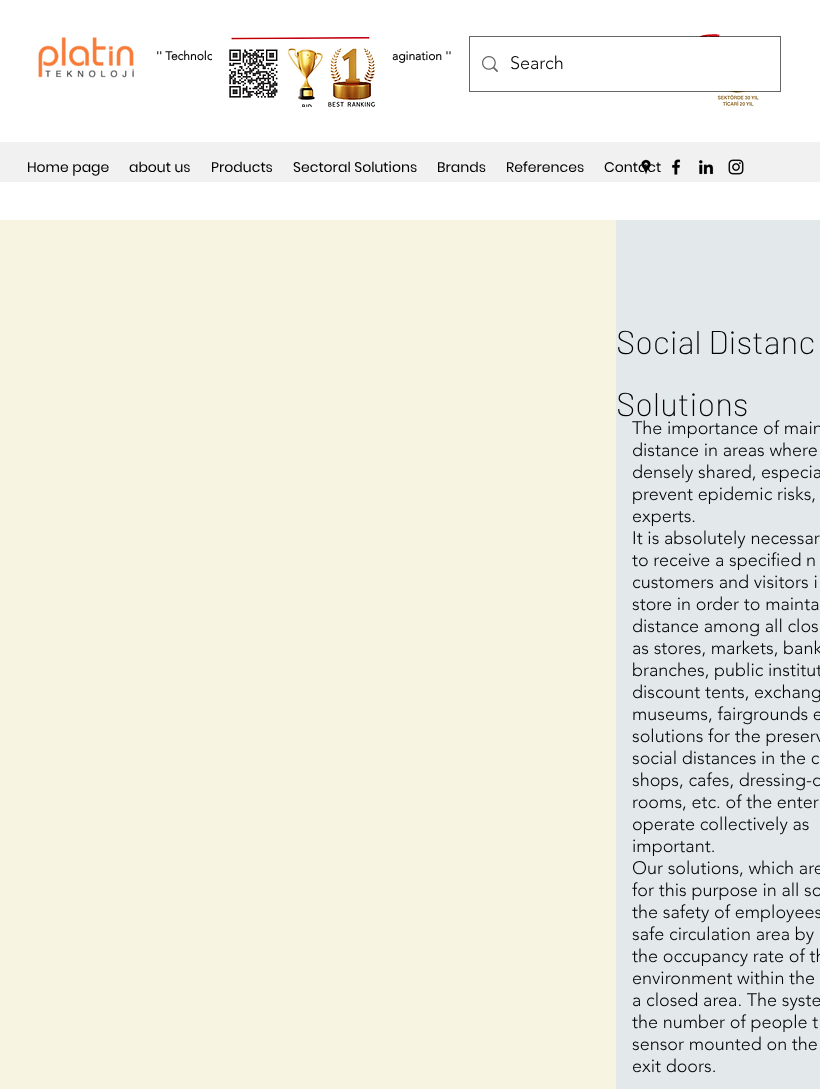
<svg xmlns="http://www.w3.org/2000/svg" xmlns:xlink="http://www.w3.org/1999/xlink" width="820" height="1089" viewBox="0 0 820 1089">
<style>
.cls-1{font:bold 12px 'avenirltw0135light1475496';fill:#000000}
.cls-2{font:300 18px 'avenirltw0135light1475496';fill:#000000}
.cls-3{font:14px Poppins;fill:#000000}
.cls-4{font:200 33px Barlow;fill:#000000}
</style>
<rect width="100%" height="100%" fill="#ffffff"/>
<image xlink:href="image0.png" x="38" y="37" width="96" height="41"/>
<image xlink:href="image1.png" x="698" y="34" width="64" height="72"/>
<rect fill="none" stroke="#000000" stroke-opacity="0.6" x="469.5" y="36.5" width="311" height="55"/>
<rect fill="#ffffff" x="698" y="37" width="64" height="54"/>
<image xlink:href="image3.png" x="482" y="56" width="16" height="16"/>
<rect fill="#f1f1f1" x="0" y="142" width="820" height="40"/>
<image xlink:href="image5.png" x="672" y="159" width="9" height="16"/>
<image xlink:href="image6.png" x="699" y="160" width="15" height="15"/>
<image xlink:href="image7.png" x="728" y="159" width="16" height="16"/>
<rect fill="#f7f5e1" x="0" y="220" width="616" height="869"/>
<rect fill="#e3e9ea" x="616" y="220" width="204" height="869"/>
<text class="cls-1" x="156" y="60">'' Technolo</text>
<text class="cls-1" x="392" y="60">agination ''</text>
<image xlink:href="image2.png" x="212" y="37" width="176" height="70"/>
<text class="cls-2" x="510" y="69">Search</text>
<text class="cls-3" x="27" y="172">Home page</text>
<text class="cls-3" x="129" y="172">about us</text>
<text class="cls-3" x="211" y="172">Products</text>
<text class="cls-3" x="293" y="172">Sectoral Solutions</text>
<text class="cls-3" x="437" y="172">Brands</text>
<text class="cls-3" x="506" y="172">References</text>
<text class="cls-3" x="604" y="172">Contact</text>
<image xlink:href="image4.png" x="641" y="159" width="10" height="15"/>
<text class="cls-4"><tspan x="616" y="354">Social Distanc</tspan><tspan x="616" y="416">Solutions</tspan></text>
<text class="cls-2"><tspan x="632" y="434">The importance of main</tspan><tspan x="632" y="456">distance in areas where</tspan><tspan x="632" y="478">densely shared, especia</tspan><tspan x="632" y="500">prevent epidemic risks,</tspan><tspan x="632" y="522">experts.</tspan><tspan x="632" y="544">It is absolutely necessar</tspan><tspan x="632" y="566">to receive a specified n</tspan><tspan x="632" y="588">customers and visitors i</tspan><tspan x="632" y="610">store in order to mainta</tspan><tspan x="632" y="632">distance among all clos</tspan><tspan x="632" y="654">as stores, markets, bank</tspan><tspan x="632" y="676">branches, public institut</tspan><tspan x="632" y="698">discount tents, exchang</tspan><tspan x="632" y="720">museums, fairgrounds e</tspan><tspan x="632" y="742">solutions for the preserv</tspan><tspan x="632" y="764">social distances in the c</tspan><tspan x="632" y="786">shops, cafes, dressing-d</tspan><tspan x="632" y="808">rooms, etc. of the enter</tspan><tspan x="632" y="830">operate collectively as</tspan><tspan x="632" y="852">important.</tspan><tspan x="632" y="874">Our solutions, which are</tspan><tspan x="632" y="896">for this purpose in all so</tspan><tspan x="632" y="918">the safety of employees</tspan><tspan x="632" y="940">safe circulation area by</tspan><tspan x="632" y="962">the occupancy rate of th</tspan><tspan x="632" y="984">environment within the</tspan><tspan x="632" y="1006">a closed area. The syste</tspan><tspan x="632" y="1028">the number of people t</tspan><tspan x="632" y="1050">sensor mounted on the</tspan><tspan x="632" y="1072">exit doors.</tspan></text>
</svg>
